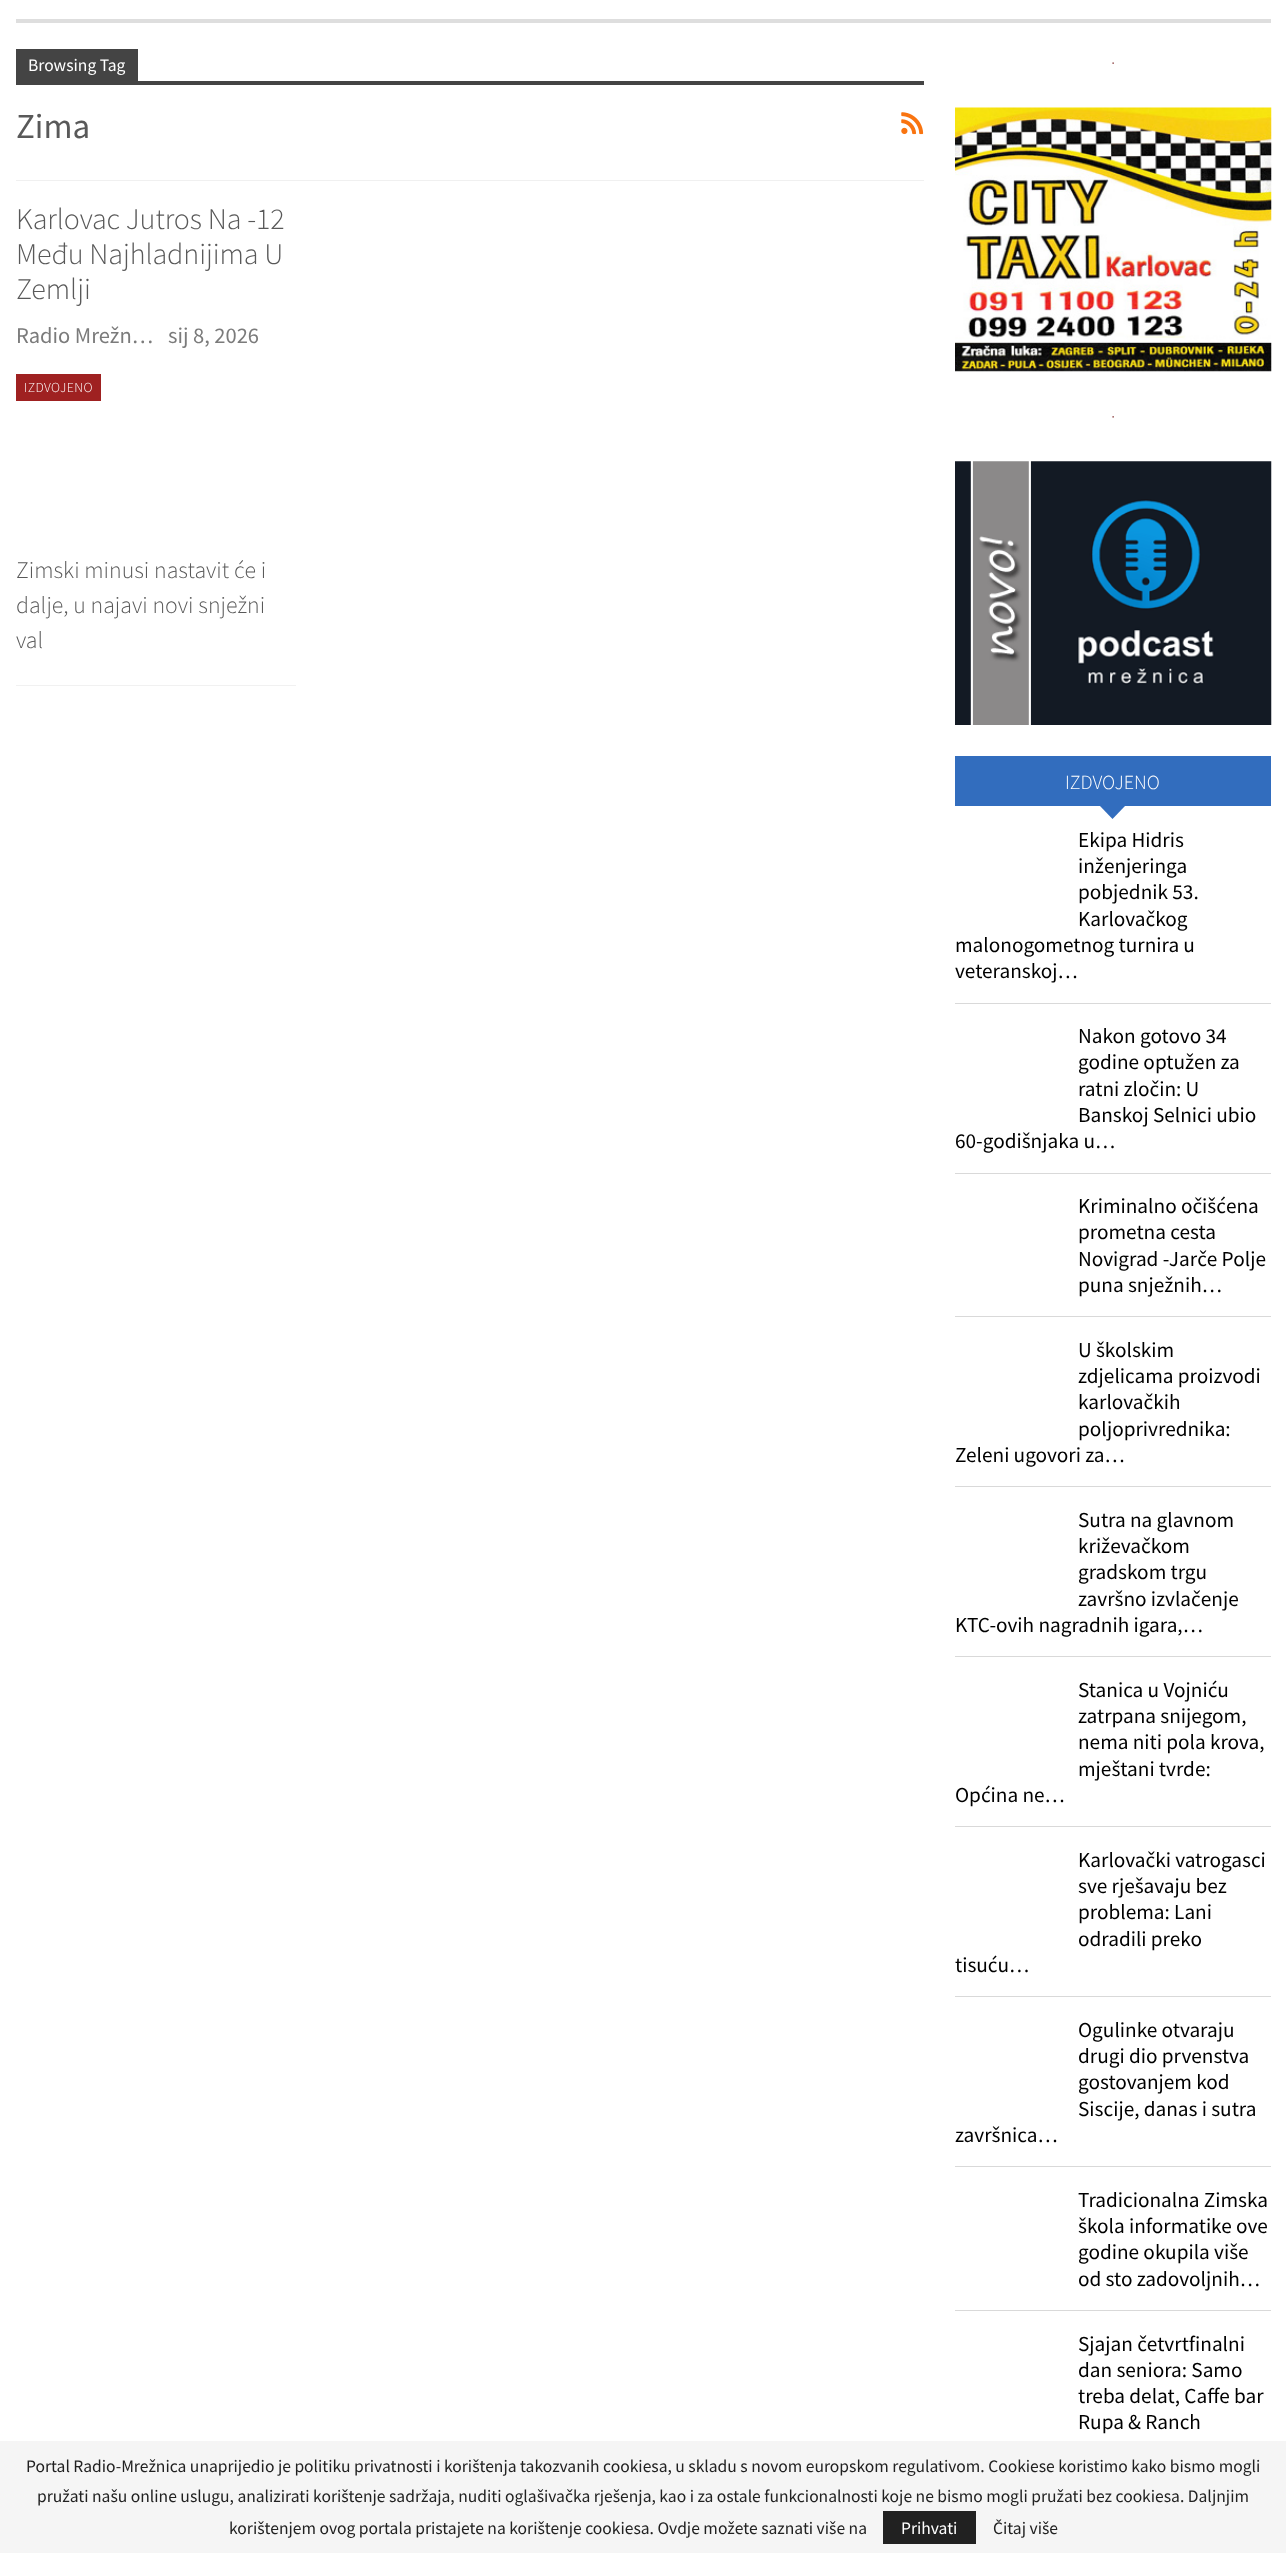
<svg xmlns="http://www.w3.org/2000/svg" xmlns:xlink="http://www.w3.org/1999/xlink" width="1286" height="2553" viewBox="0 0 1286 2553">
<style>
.cls-1{font:17.5px Source Sans Pro;fill:#ffffff}
.cls-2{font:35px Source Sans Pro;fill:#595959}
.cls-3{font:300 30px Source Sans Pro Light;letter-spacing:-0.1px;fill:#595959}
.cls-4{font:22.5px Source Sans Pro;fill:#7b7b7b}
.cls-5{font:300 13.75px Source Sans Pro Light;letter-spacing:0.4px;fill:#ffffff}
.cls-6{font:300 23.75px Source Sans Pro Light;fill:#595959}
.cls-7{font:300 20px Source Sans Pro Light;fill:#ffffff}
.cls-8{font:21.25px Source Sans Pro;fill:#000000}
.cls-9{font:17.5px Source Sans Pro;fill:#212121}
</style>
<rect width="100%" height="100%" fill="#ffffff"/>
<rect fill="#dedede" x="16" y="19" width="1255" height="4"/>
<rect fill="#f0f0f0" x="16" y="180" width="908" height="1"/>
<rect fill="#444444" x="16" y="49" width="122" height="32"/>
<rect fill="#444444" x="16" y="81" width="908" height="4"/>
<image xlink:href="image0.png" x="901" y="112" width="23" height="23"/>
<rect fill="#9f2121" x="16" y="374" width="85" height="27"/>
<rect fill="#f1f1f1" x="16" y="685" width="280" height="1"/>
<image xlink:href="image1.png" x="1112" y="62" width="2" height="2"/>
<image xlink:href="image2.png" x="955" y="107" width="317" height="265"/>
<image xlink:href="image3.png" x="1112" y="416" width="2" height="2"/>
<image xlink:href="image4.png" x="955" y="461" width="317" height="264"/>
<rect fill="#326dbe" x="955" y="756" width="316" height="50"/>
<path fill="#326dbe" d="M1100 806H1125L1112.5 819Z"/>
<rect fill="#d9d9d9" x="955" y="1003" width="316" height="1"/>
<rect fill="#d9d9d9" x="955" y="1173" width="316" height="1"/>
<rect fill="#d9d9d9" x="955" y="1316" width="316" height="1"/>
<rect fill="#d9d9d9" x="955" y="1486" width="316" height="1"/>
<rect fill="#d9d9d9" x="955" y="1656" width="316" height="1"/>
<rect fill="#d9d9d9" x="955" y="1826" width="316" height="1"/>
<rect fill="#d9d9d9" x="955" y="1996" width="316" height="1"/>
<rect fill="#d9d9d9" x="955" y="2166" width="316" height="1"/>
<rect fill="#d9d9d9" x="955" y="2310" width="316" height="1"/>
<rect fill="#f5f5f5" x="0" y="2441" width="1286" height="112"/>
<rect fill="#212121" x="883" y="2511" width="93" height="33"/>
<text class="cls-1" x="28" y="71">Browsing Tag</text>
<text class="cls-2" x="16" y="138">Zima</text>
<text class="cls-3"><tspan x="16" y="229">Karlovac Jutros Na -12</tspan><tspan x="16" y="264">Među Najhladnijima U</tspan><tspan x="16" y="299">Zemlji</tspan></text>
<text class="cls-4" x="16" y="343">Radio Mrežn…</text>
<text class="cls-4" x="168" y="343">sij 8, 2026</text>
<text class="cls-5" x="24" y="392">IZDVOJENO</text>
<text class="cls-6"><tspan x="16" y="578">Zimski minusi nastavit će i</tspan><tspan x="16" y="613">dalje, u najavi novi snježni</tspan><tspan x="16" y="648">val</tspan></text>
<text class="cls-7" x="1065" y="789">IZDVOJENO</text>
<text class="cls-8"><tspan x="1078" y="847">Ekipa Hidris</tspan><tspan x="1078" y="873">inženjeringa</tspan><tspan x="1078" y="899">pobjednik 53.</tspan><tspan x="1078" y="926">Karlovačkog</tspan></text>
<text class="cls-8"><tspan x="955" y="952">malonogometnog turnira u</tspan><tspan x="955" y="978">veteranskoj…</tspan></text>
<text class="cls-8"><tspan x="1078" y="1043">Nakon gotovo 34</tspan><tspan x="1078" y="1069">godine optužen za</tspan><tspan x="1078" y="1096">ratni zločin: U</tspan><tspan x="1078" y="1122">Banskoj Selnici ubio</tspan></text>
<text class="cls-8" x="955" y="1148">60-godišnjaka u…</text>
<text class="cls-8"><tspan x="1078" y="1213">Kriminalno očišćena</tspan><tspan x="1078" y="1239">prometna cesta</tspan><tspan x="1078" y="1266">Novigrad -Jarče Polje</tspan><tspan x="1078" y="1292">puna snježnih…</tspan></text>
<text class="cls-8"><tspan x="1078" y="1357">U školskim</tspan><tspan x="1078" y="1383">zdjelicama proizvodi</tspan><tspan x="1078" y="1409">karlovačkih</tspan><tspan x="1078" y="1436">poljoprivrednika:</tspan></text>
<text class="cls-8" x="955" y="1462">Zeleni ugovori za…</text>
<text class="cls-8"><tspan x="1078" y="1527">Sutra na glavnom</tspan><tspan x="1078" y="1553">križevačkom</tspan><tspan x="1078" y="1579">gradskom trgu</tspan><tspan x="1078" y="1606">završno izvlačenje</tspan></text>
<text class="cls-8" x="955" y="1632">KTC-ovih nagradnih igara,…</text>
<text class="cls-8"><tspan x="1078" y="1697">Stanica u Vojniću</tspan><tspan x="1078" y="1723">zatrpana snijegom,</tspan><tspan x="1078" y="1749">nema niti pola krova,</tspan><tspan x="1078" y="1776">mještani tvrde:</tspan></text>
<text class="cls-8" x="955" y="1802">Općina ne…</text>
<text class="cls-8"><tspan x="1078" y="1867">Karlovački vatrogasci</tspan><tspan x="1078" y="1893">sve rješavaju bez</tspan><tspan x="1078" y="1919">problema: Lani</tspan><tspan x="1078" y="1946">odradili preko</tspan></text>
<text class="cls-8" x="955" y="1972">tisuću…</text>
<text class="cls-8"><tspan x="1078" y="2037">Ogulinke otvaraju</tspan><tspan x="1078" y="2063">drugi dio prvenstva</tspan><tspan x="1078" y="2089">gostovanjem kod</tspan><tspan x="1078" y="2116">Siscije, danas i sutra</tspan></text>
<text class="cls-8" x="955" y="2142">završnica…</text>
<text class="cls-8"><tspan x="1078" y="2207">Tradicionalna Zimska</tspan><tspan x="1078" y="2233">škola informatike ove</tspan><tspan x="1078" y="2259">godine okupila više</tspan><tspan x="1078" y="2286">od sto zadovoljnih…</tspan></text>
<text class="cls-8"><tspan x="1078" y="2351">Sjajan četvrtfinalni</tspan><tspan x="1078" y="2377">dan seniora: Samo</tspan><tspan x="1078" y="2403">treba delat, Caffe bar</tspan><tspan x="1078" y="2429">Rupa &amp; Ranch</tspan></text>
<text class="cls-9" x="26" y="2472">Portal Radio-Mrežnica unaprijedio je politiku privatnosti i korištenja takozvanih cookiesa, u skladu s novom europskom regulativom. Cookiese koristimo kako bismo mogli</text>
<text class="cls-9" x="37" y="2502">pružati našu online uslugu, analizirati korištenje sadržaja, nuditi oglašivačka rješenja, kao i za ostale funkcionalnosti koje ne bismo mogli pružati bez cookiesa. Daljnjim</text>
<text class="cls-9" x="229" y="2534">korištenjem ovog portala pristajete na korištenje cookiesa. Ovdje možete saznati više na</text>
<text class="cls-1" x="901" y="2534">Prihvati</text>
<text class="cls-9" x="993" y="2534">Čitaj više</text>
</svg>
